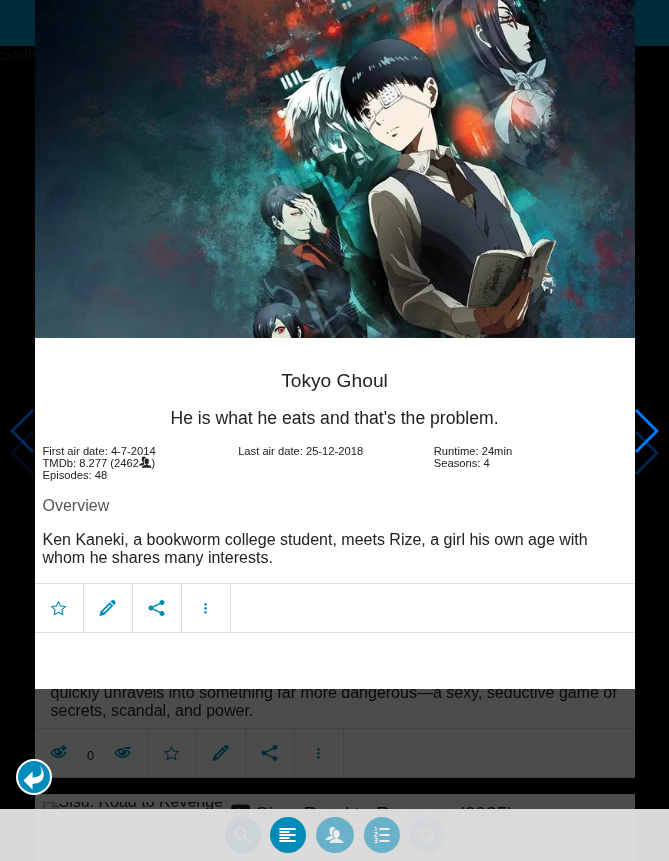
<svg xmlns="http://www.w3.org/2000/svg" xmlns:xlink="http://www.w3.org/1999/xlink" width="669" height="861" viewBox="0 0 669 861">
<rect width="100%" height="100%" fill="#ffffff"/>
<image xlink:href="image0.png" x="0" y="0" width="669" height="861"/>
</svg>
